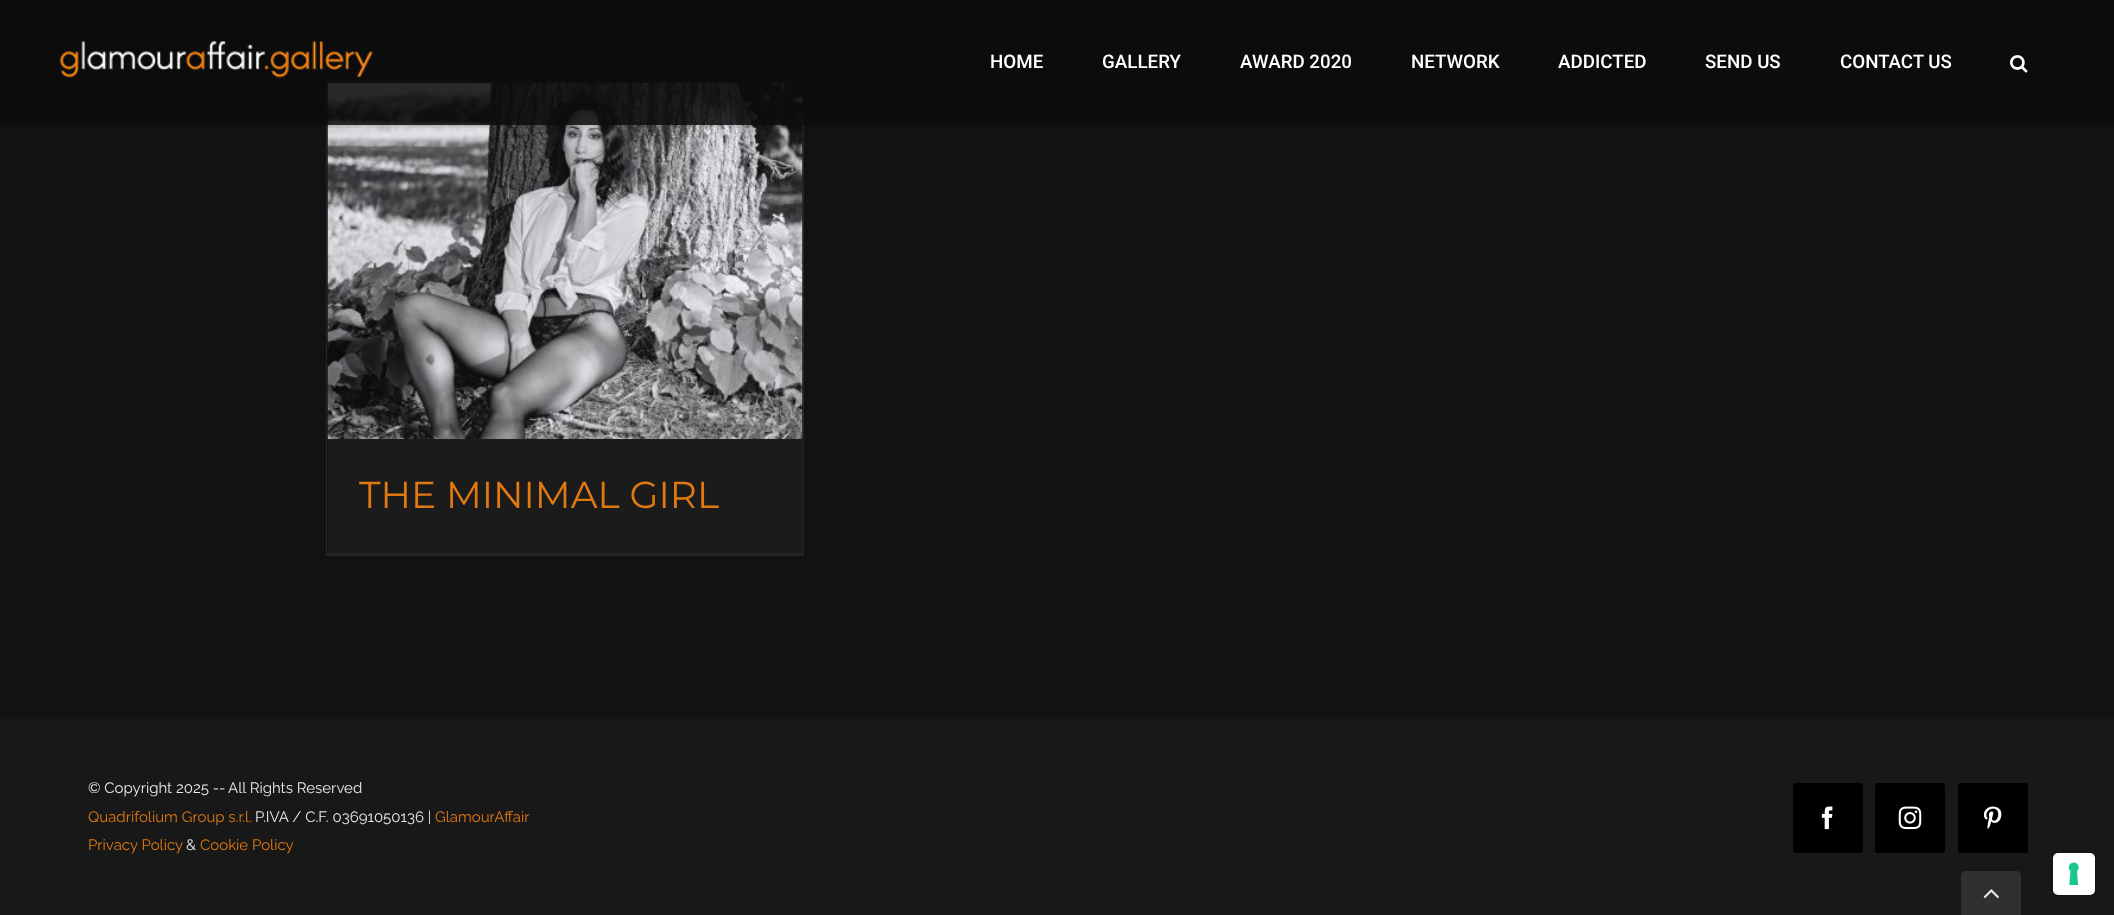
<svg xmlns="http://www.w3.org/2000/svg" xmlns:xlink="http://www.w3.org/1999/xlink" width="2114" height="915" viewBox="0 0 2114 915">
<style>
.cls-1{font:500 18.75px Roboto;fill:#ffffff}
.cls-2{font:37.5px Montserrat;fill:#e07912}
.cls-3{font:15px Raleway;fill:#eaeaea}
.cls-4{font:15px Raleway;fill:#e07912}
</style>
<defs>
<clipPath id="clip1"><rect x="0" y="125" width="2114" height="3"/></clipPath>
</defs>
<rect width="100%" height="100%" fill="#121213"/>
<rect fill="#1b1b1c" x="328" y="83" width="475" height="470"/>
<rect fill="#252525" x="326" y="81" width="478" height="1"/>
<rect fill="#252525" x="803" y="81" width="1" height="475"/>
<rect fill="#252525" x="326" y="553" width="478" height="3"/>
<rect fill="#252525" x="326" y="81" width="1" height="475"/>
<image xlink:href="image2.png" x="327" y="82" width="476" height="357"/>
<g clip-path="url(#clip1)">
<rect fill="#000000" fill-opacity="0.12" filter="blur(2px)" x="0" y="1" width="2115" height="125"/>
</g>
<rect fill="#0c0c0d" fill-opacity="0.86" x="0" y="0" width="2114" height="125"/>
<image xlink:href="image0.png" x="59" y="41" width="314" height="38"/>
<image xlink:href="image1.png" x="2010" y="55" width="18" height="18"/>
<rect fill="#181819" x="0" y="719" width="2114" height="196"/>
<rect fill="#000000" stroke="#000000" x="1793.5" y="783.5" width="69" height="69" rx="2"/>
<image xlink:href="image3.png" x="1821" y="806" width="12" height="24"/>
<rect fill="#000000" stroke="#000000" x="1875.5" y="783.5" width="69" height="69" rx="2"/>
<image xlink:href="image4.png" x="1898" y="806" width="24" height="24"/>
<rect fill="#000000" stroke="#000000" x="1958.5" y="783.5" width="69" height="69" rx="2"/>
<image xlink:href="image5.png" x="1983" y="806" width="19" height="23"/>
<path fill="#303030" d="M1966 871H2016C2019 871 2021 873 2021 876V915H1961V876C1961 873 1963 871 1966 871Z"/>
<image xlink:href="image6.png" x="1983" y="889" width="16" height="10"/>
<rect fill="none" stroke="#141415" x="2051.5" y="851.5" width="44" height="44" rx="5.5"/>
<rect fill="#ffffff" x="2053" y="853" width="42" height="42" rx="5"/>
<image xlink:href="image7.png" x="2068" y="862" width="11" height="23"/>
<text class="cls-1" x="990" y="68">HOME</text>
<text class="cls-1" x="1102" y="68">GALLERY</text>
<text class="cls-1" x="1240" y="68">AWARD 2020</text>
<text class="cls-1" x="1411" y="68">NETWORK</text>
<text class="cls-1" x="1558" y="68">ADDICTED</text>
<text class="cls-1" x="1705" y="68">SEND US</text>
<text class="cls-1" x="1840" y="68">CONTACT US</text>
<text class="cls-2" x="359" y="508">THE MINIMAL GIRL</text>
<text class="cls-3" x="88" y="793">© Copyright 2025 --</text>
<text class="cls-3" x="228" y="793">All Rights Reserved</text>
<text class="cls-4" x="88" y="822">Quadrifolium Group s.r.l.</text>
<text class="cls-3" x="255" y="822">P.IVA / C.F. 03691050136 |</text>
<text class="cls-4" x="435" y="822">GlamourAffair</text>
<text class="cls-4" x="88" y="850">Privacy Policy</text>
<text class="cls-3" x="186" y="850">&amp;</text>
<text class="cls-4" x="200" y="850">Cookie Policy</text>
</svg>
